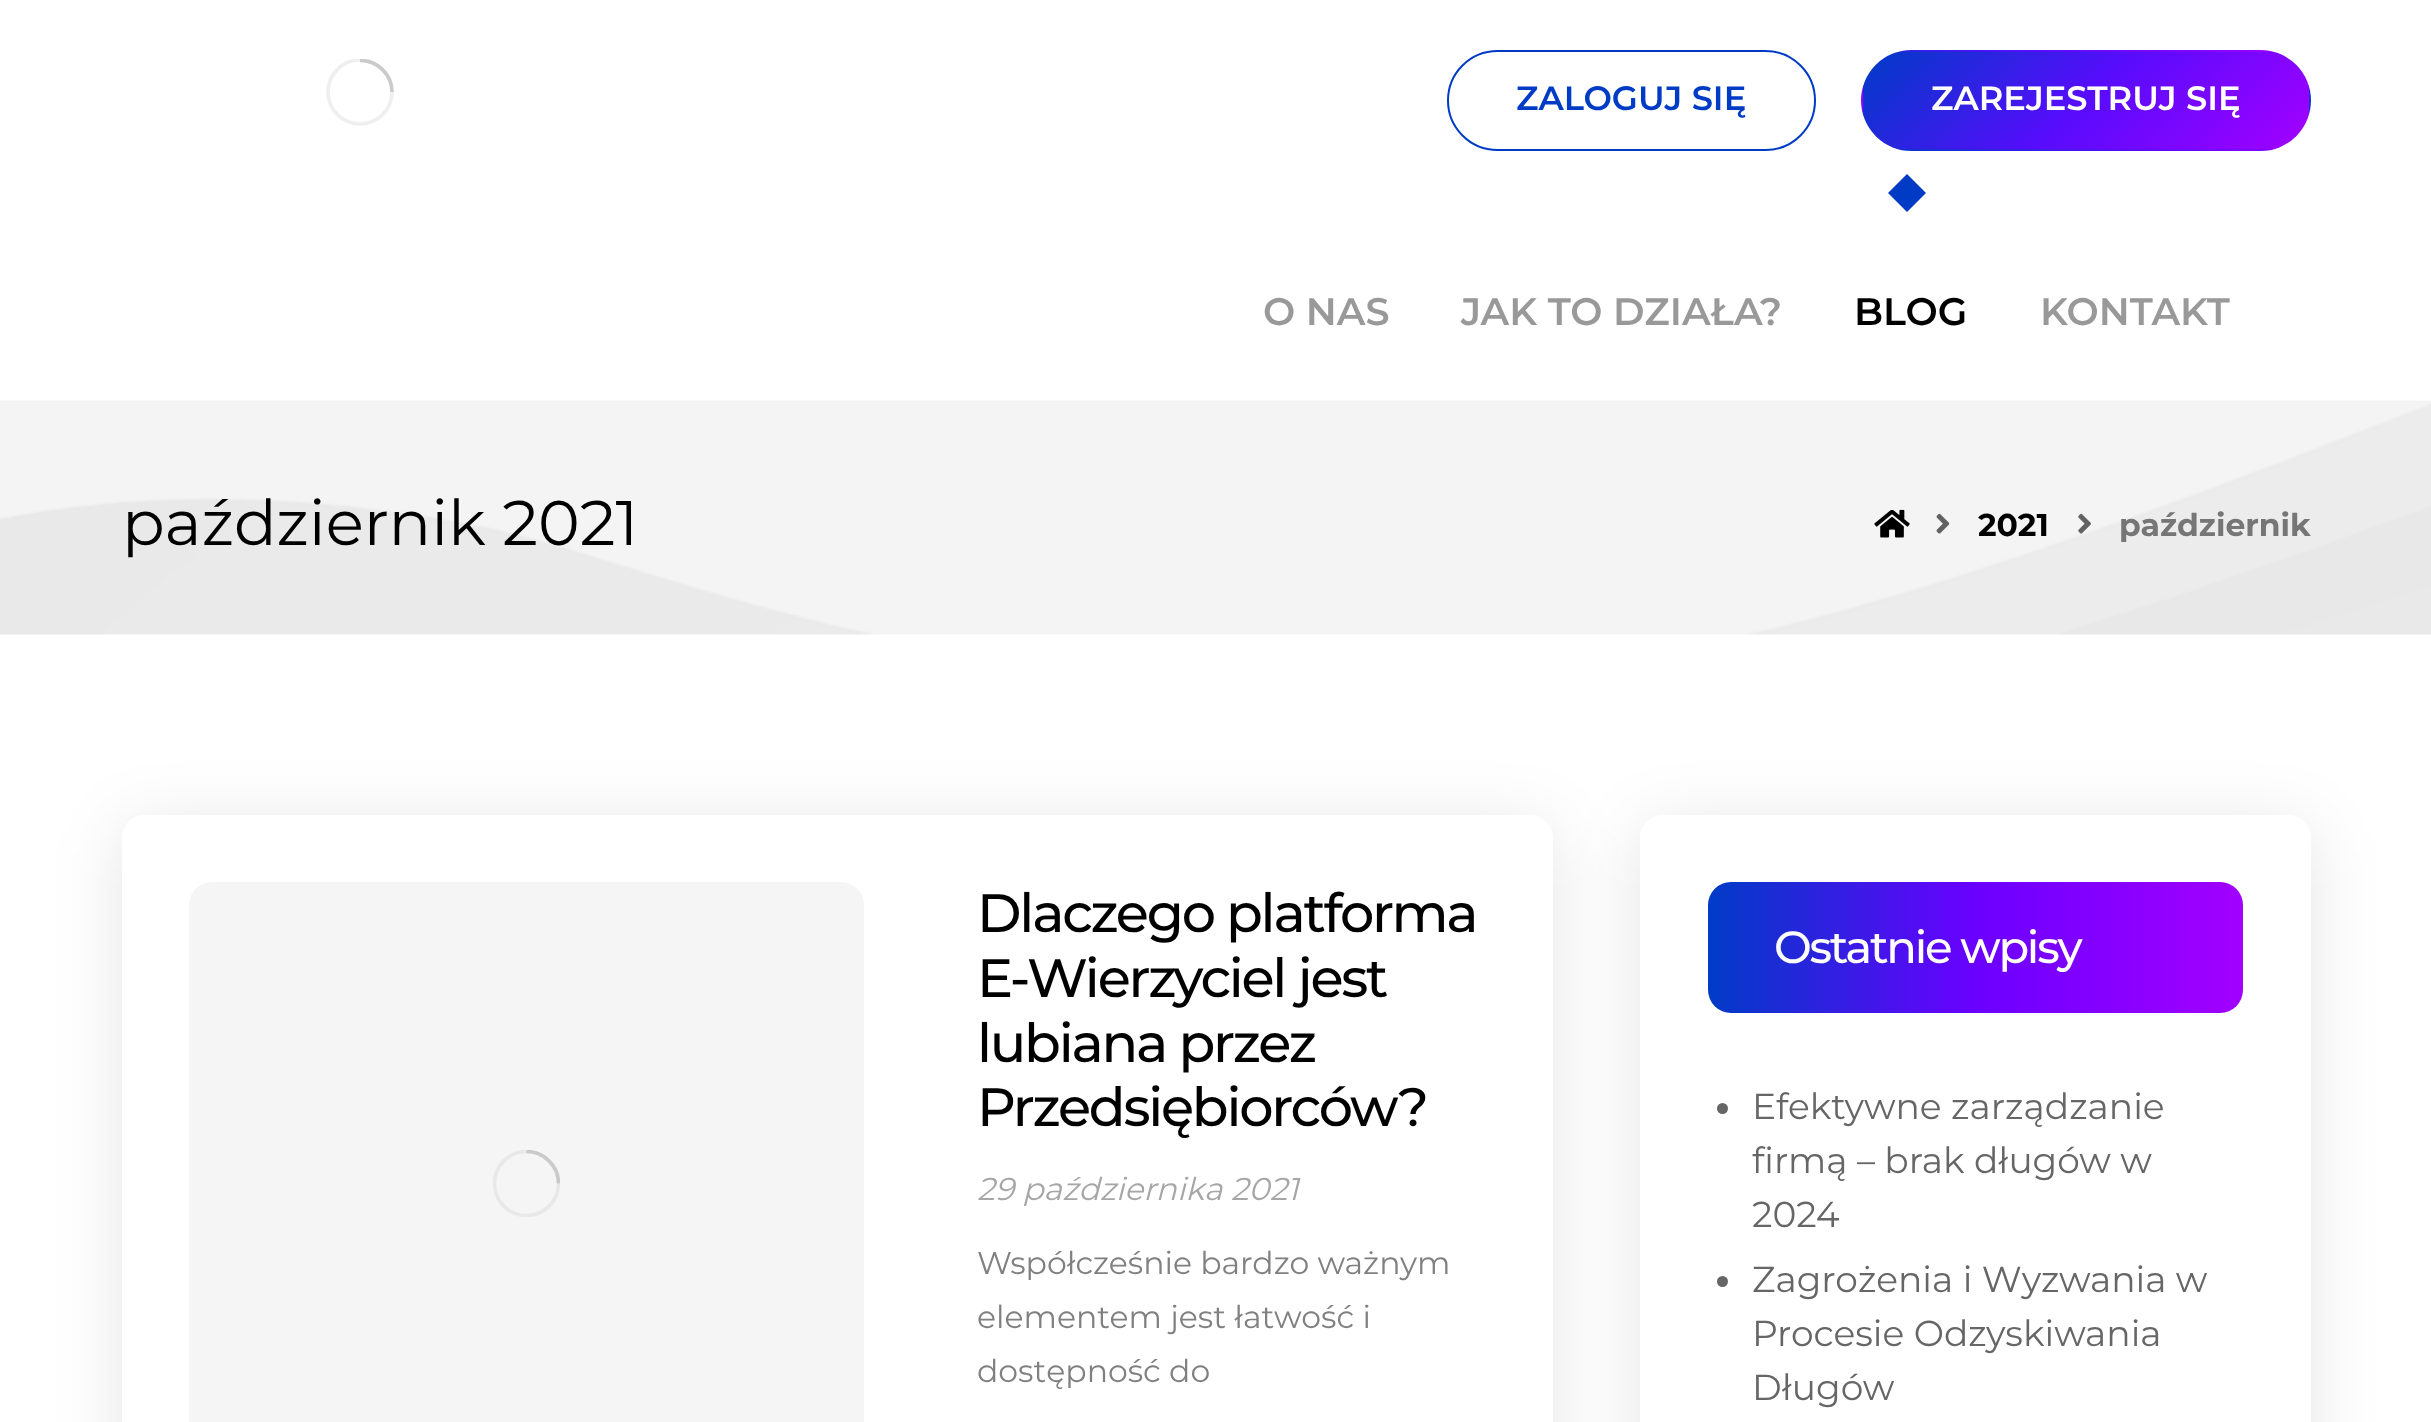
<svg xmlns="http://www.w3.org/2000/svg" xmlns:xlink="http://www.w3.org/1999/xlink" width="2431" height="1422" viewBox="0 0 2431 1422">
<style>
.cls-1{font:600 33.75px Montserrat;fill:#003bc6}
.cls-2{font:600 33.75px Montserrat;fill:#ffffff}
.cls-3{font:600 38.25px Montserrat;fill:#999999}
.cls-4{font:600 38.25px Montserrat;fill:#000000}
.cls-5{font:63px Montserrat;fill:#000000}
.cls-6{font:bold 31.5px Montserrat;fill:#000000}
.cls-7{font:bold 31.5px Montserrat;fill:#767676}
.cls-8{font:500 54px Montserrat;letter-spacing:-2.25px;fill:#000000}
.cls-9{font:italic 31.5px Montserrat;fill:#a6a6a6}
.cls-10{font:31.5px Montserrat;fill:#808080}
.cls-11{font:500 45px Montserrat;letter-spacing:-2.25px;fill:#ffffff}
.cls-12{font:36px Montserrat;fill:#666666}
</style>
<defs>
<clipPath id="clip1"><rect x="326" y="59" width="68" height="67"/></clipPath>
<clipPath id="clip2"><rect x="1861" y="50" width="450" height="101" rx="50.5"/></clipPath>
<linearGradient id="g1" gradientUnits="userSpaceOnUse" x1="1950" y1="-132" x2="2221" y2="139"><stop offset="0" stop-color="#003bc6"/><stop offset="0.5" stop-color="#580cfc"/><stop offset="1" stop-color="#a200ff"/></linearGradient>
<linearGradient id="g2" gradientUnits="userSpaceOnUse" x1="1505" y1="-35" x2="1776" y2="236"><stop offset="0" stop-color="#003bc6"/><stop offset="0.5" stop-color="#580cfc"/><stop offset="1" stop-color="#a200ff"/></linearGradient>
<linearGradient id="g3" gradientUnits="userSpaceOnUse" x1="1950" y1="-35" x2="2221" y2="236"><stop offset="0" stop-color="#003bc6"/><stop offset="0.5" stop-color="#580cfc"/><stop offset="1" stop-color="#a200ff"/></linearGradient>
<linearGradient id="g4" gradientUnits="userSpaceOnUse" x1="2396" y1="-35" x2="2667" y2="236"><stop offset="0" stop-color="#003bc6"/><stop offset="0.5" stop-color="#580cfc"/><stop offset="1" stop-color="#a200ff"/></linearGradient>
<linearGradient id="g5" gradientUnits="userSpaceOnUse" x1="1950" y1="61" x2="2221" y2="332"><stop offset="0" stop-color="#003bc6"/><stop offset="0.5" stop-color="#580cfc"/><stop offset="1" stop-color="#a200ff"/></linearGradient>
<clipPath id="clip3"><path d="M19 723H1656V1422H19ZM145 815H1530C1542.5 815 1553 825.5 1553 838V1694C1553 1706.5 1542.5 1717 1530 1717H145C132.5 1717 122 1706.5 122 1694V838C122 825.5 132.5 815 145 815Z" clip-rule="evenodd"/></clipPath>
<clipPath id="clip4"><rect x="493" y="1150" width="67" height="67"/></clipPath>
<clipPath id="clip5"><path d="M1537 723H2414V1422H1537ZM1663 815H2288C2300.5 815 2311 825.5 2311 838V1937C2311 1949.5 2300.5 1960 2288 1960H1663C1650.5 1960 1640 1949.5 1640 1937V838C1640 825.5 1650.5 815 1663 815Z" clip-rule="evenodd"/></clipPath>
<linearGradient id="g6" gradientUnits="userSpaceOnUse" x1="2243" y1="947" x2="1708" y2="947"><stop offset="0" stop-color="#a200ff"/><stop offset="0.5" stop-color="#6a00ff"/><stop offset="1" stop-color="#003bc6"/></linearGradient>
</defs>
<rect width="100%" height="100%" fill="#ffffff"/>
<g clip-path="url(#clip1)">
<circle fill="none" stroke="#efefef" stroke-width="3.6" cx="360" cy="92" r="32"/>
<path fill="none" stroke="#cacaca" stroke-width="3.6" d="M392 92C392 74.5 377.5 60.5 360 60.5"/>
</g>
<rect fill="none" stroke="#003bc6" stroke-width="2" x="1448" y="51" width="367" height="99" rx="49.5"/>
<g clip-path="url(#clip2)">
<rect fill="url(#g1)" x="1898" y="50" width="377" height="2"/>
<rect fill="url(#g2)" x="1861" y="86" width="2" height="29"/>
<rect fill="url(#g3)" x="1863" y="52" width="446" height="97"/>
<rect fill="url(#g4)" x="2309" y="86" width="2" height="29"/>
<rect fill="url(#g5)" x="1898" y="149" width="377" height="2"/>
</g>
<path fill="#003bc6" d="M1907 174L1926 193L1907 212L1888 193Z"/>
<image xlink:href="image0.png" x="0" y="400" width="2431" height="235"/>
<image xlink:href="image1.png" x="1874" y="509" width="36" height="29"/>
<image xlink:href="image2.png" x="1936" y="513" width="14" height="21"/>
<image xlink:href="image3.png" x="2078" y="513" width="13" height="21"/>
<g clip-path="url(#clip3)">
<rect fill="#000000" fill-opacity="0.1" filter="blur(34px)" x="122" y="826" width="1431" height="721" rx="23"/>
</g>
<rect fill="#f5f5f5" x="189" y="882" width="675" height="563" rx="23"/>
<g clip-path="url(#clip4)">
<circle fill="none" stroke="#e8e8e8" stroke-width="3.6" cx="526.5" cy="1183.5" r="32"/>
<path fill="none" stroke="#cacaca" stroke-width="3.6" d="M558.5 1183.5C558.5 1166 544 1151.5 526.5 1151.5"/>
</g>
<g clip-path="url(#clip5)">
<rect fill="#000000" fill-opacity="0.1" filter="blur(34px)" x="1640" y="826" width="671" height="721" rx="23"/>
</g>
<rect fill="url(#g6)" x="1708" y="882" width="535" height="131" rx="23"/>
<circle fill="#666666" cx="1722.5" cy="1108.5" r="5.5"/>
<circle fill="#666666" cx="1722.5" cy="1281.5" r="5.5"/>
<text class="cls-1" x="1516" y="110">ZALOGUJ SIĘ</text>
<text class="cls-2" x="1931" y="110">ZAREJESTRUJ SIĘ</text>
<text class="cls-3" x="1263" y="325">O NAS</text>
<text class="cls-3" x="1461" y="325">JAK TO DZIAŁA?</text>
<text class="cls-4" x="1854" y="325">BLOG</text>
<text class="cls-3" x="2040" y="325">KONTAKT</text>
<text class="cls-5" x="122" y="545">październik 2021</text>
<text class="cls-6" x="1978" y="536">2021</text>
<text class="cls-7" x="2119" y="536">październik</text>
<text class="cls-8"><tspan x="977" y="932">Dlaczego platforma</tspan><tspan x="977" y="997">E-Wierzyciel jest</tspan><tspan x="977" y="1062">lubiana przez</tspan><tspan x="977" y="1126">Przedsiębiorców?</tspan></text>
<text class="cls-9" x="977" y="1200">29 października 2021</text>
<text class="cls-10"><tspan x="977" y="1274">Współcześnie bardzo ważnym</tspan><tspan x="977" y="1328">elementem jest łatwość i</tspan><tspan x="977" y="1382">dostępność do</tspan></text>
<text class="cls-11" x="1774" y="963">Ostatnie wpisy</text>
<text class="cls-12"><tspan x="1752" y="1119">Efektywne zarządzanie</tspan><tspan x="1752" y="1173">firmą – brak długów w</tspan><tspan x="1752" y="1227">2024</tspan><tspan x="1752" y="1292">Zagrożenia i Wyzwania w</tspan><tspan x="1752" y="1346">Procesie Odzyskiwania</tspan><tspan x="1752" y="1400">Długów</tspan></text>
</svg>
